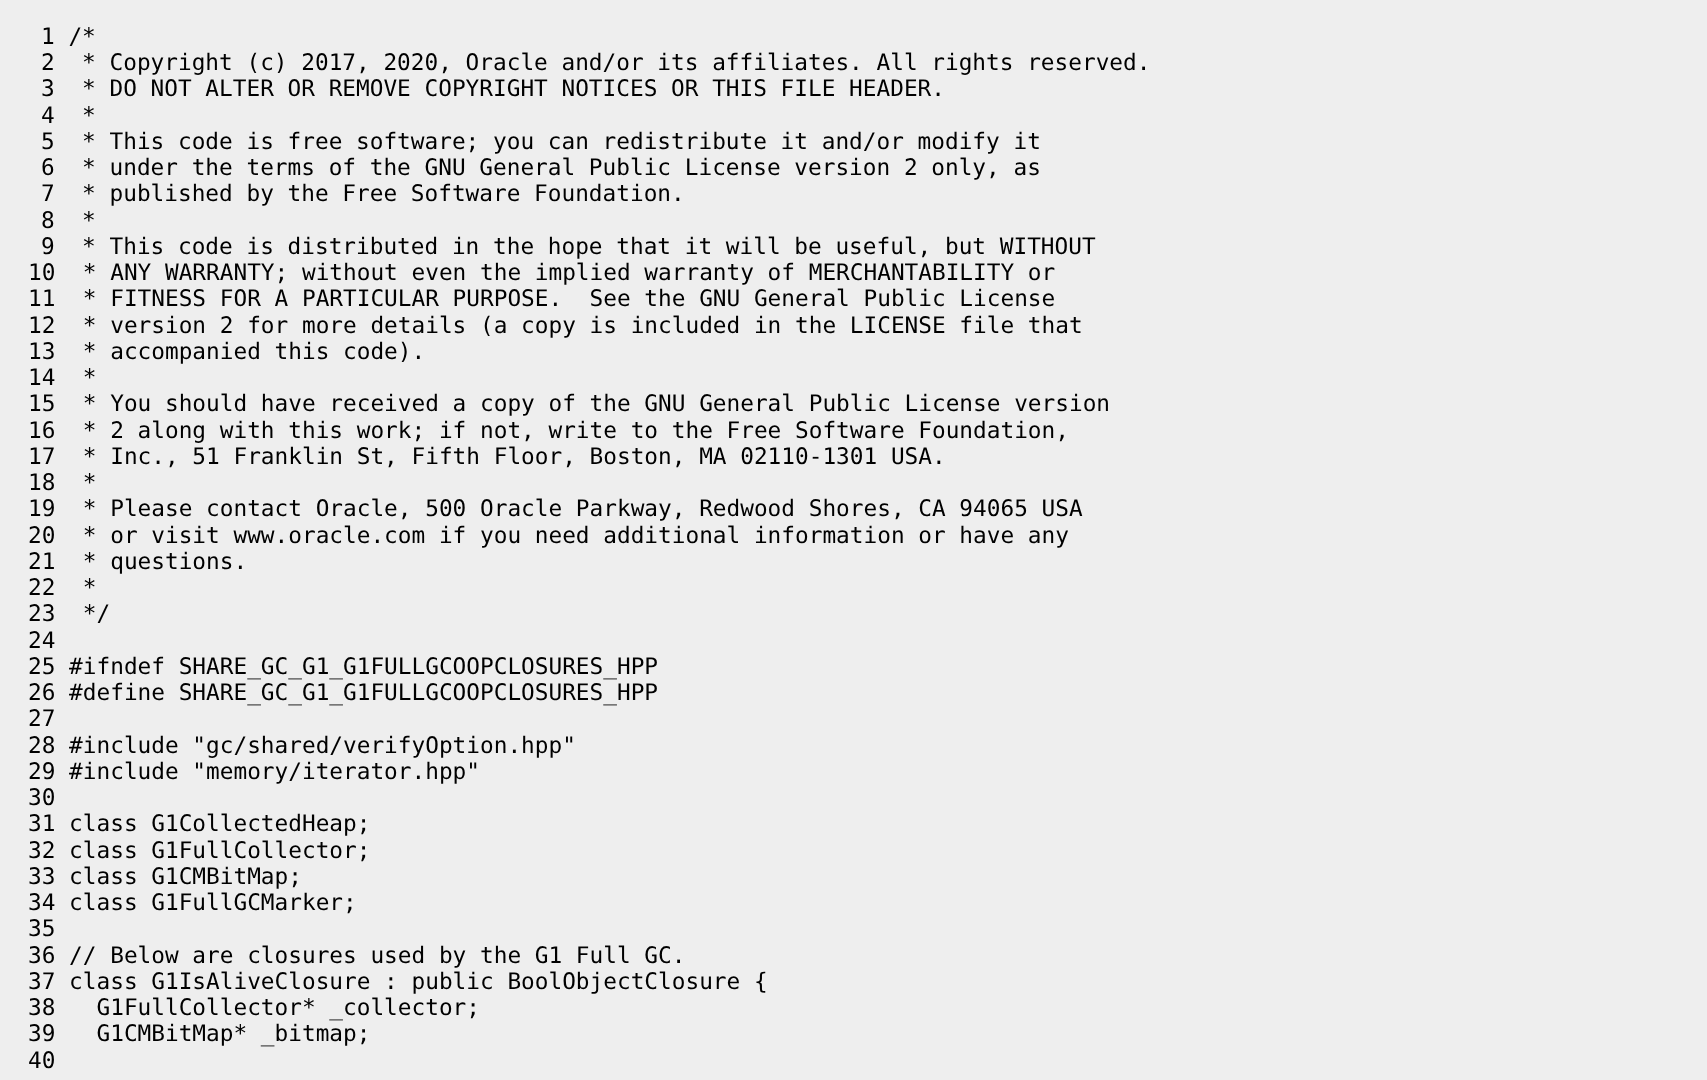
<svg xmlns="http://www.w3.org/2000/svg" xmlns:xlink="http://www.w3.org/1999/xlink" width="1707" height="1080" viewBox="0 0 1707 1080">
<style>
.cls-1{font:22.75px DejaVu Sans Mono;fill:#000000}
</style>
<rect width="100%" height="100%" fill="#eeeeee"/>
<text class="cls-1" xml:space="preserve"><tspan x="41" y="44">1 /*</tspan><tspan x="41" y="70">2  * Copyright (c) 2017, 2020, Oracle and/or its affiliates. All rights reserved.</tspan><tspan x="41" y="96">3  * DO NOT ALTER OR REMOVE COPYRIGHT NOTICES OR THIS FILE HEADER.</tspan><tspan x="41" y="123">4  *</tspan><tspan x="41" y="149">5  * This code is free software; you can redistribute it and/or modify it</tspan><tspan x="41" y="175">6  * under the terms of the GNU General Public License version 2 only, as</tspan><tspan x="41" y="201">7  * published by the Free Software Foundation.</tspan><tspan x="41" y="228">8  *</tspan><tspan x="41" y="254">9  * This code is distributed in the hope that it will be useful, but WITHOUT</tspan></text>
<text class="cls-1" xml:space="preserve"><tspan x="28" y="280">10  * ANY WARRANTY; without even the implied warranty of MERCHANTABILITY or</tspan><tspan x="28" y="306">11  * FITNESS FOR A PARTICULAR PURPOSE.  See the GNU General Public License</tspan><tspan x="28" y="333">12  * version 2 for more details (a copy is included in the LICENSE file that</tspan><tspan x="28" y="359">13  * accompanied this code).</tspan><tspan x="28" y="385">14  *</tspan><tspan x="28" y="411">15  * You should have received a copy of the GNU General Public License version</tspan><tspan x="28" y="438">16  * 2 along with this work; if not, write to the Free Software Foundation,</tspan><tspan x="28" y="464">17  * Inc., 51 Franklin St, Fifth Floor, Boston, MA 02110-1301 USA.</tspan><tspan x="28" y="490">18  *</tspan><tspan x="28" y="516">19  * Please contact Oracle, 500 Oracle Parkway, Redwood Shores, CA 94065 USA</tspan><tspan x="28" y="543">20  * or visit www.oracle.com if you need additional information or have any</tspan><tspan x="28" y="569">21  * questions.</tspan><tspan x="28" y="595">22  *</tspan><tspan x="28" y="621">23  */</tspan><tspan x="28" y="648">24</tspan><tspan x="28" y="674">25 #ifndef SHARE_GC_G1_G1FULLGCOOPCLOSURES_HPP</tspan><tspan x="28" y="700">26 #define SHARE_GC_G1_G1FULLGCOOPCLOSURES_HPP</tspan><tspan x="28" y="726">27</tspan><tspan x="28" y="753">28 #include "gc/shared/verifyOption.hpp"</tspan><tspan x="28" y="779">29 #include "memory/iterator.hpp"</tspan><tspan x="28" y="805">30</tspan><tspan x="28" y="831">31 class G1CollectedHeap;</tspan><tspan x="28" y="858">32 class G1FullCollector;</tspan><tspan x="28" y="884">33 class G1CMBitMap;</tspan><tspan x="28" y="910">34 class G1FullGCMarker;</tspan><tspan x="28" y="936">35</tspan><tspan x="28" y="963">36 // Below are closures used by the G1 Full GC.</tspan><tspan x="28" y="989">37 class G1IsAliveClosure : public BoolObjectClosure {</tspan><tspan x="28" y="1015">38   G1FullCollector* _collector;</tspan><tspan x="28" y="1041">39   G1CMBitMap* _bitmap;</tspan><tspan x="28" y="1068">40</tspan></text>
</svg>
